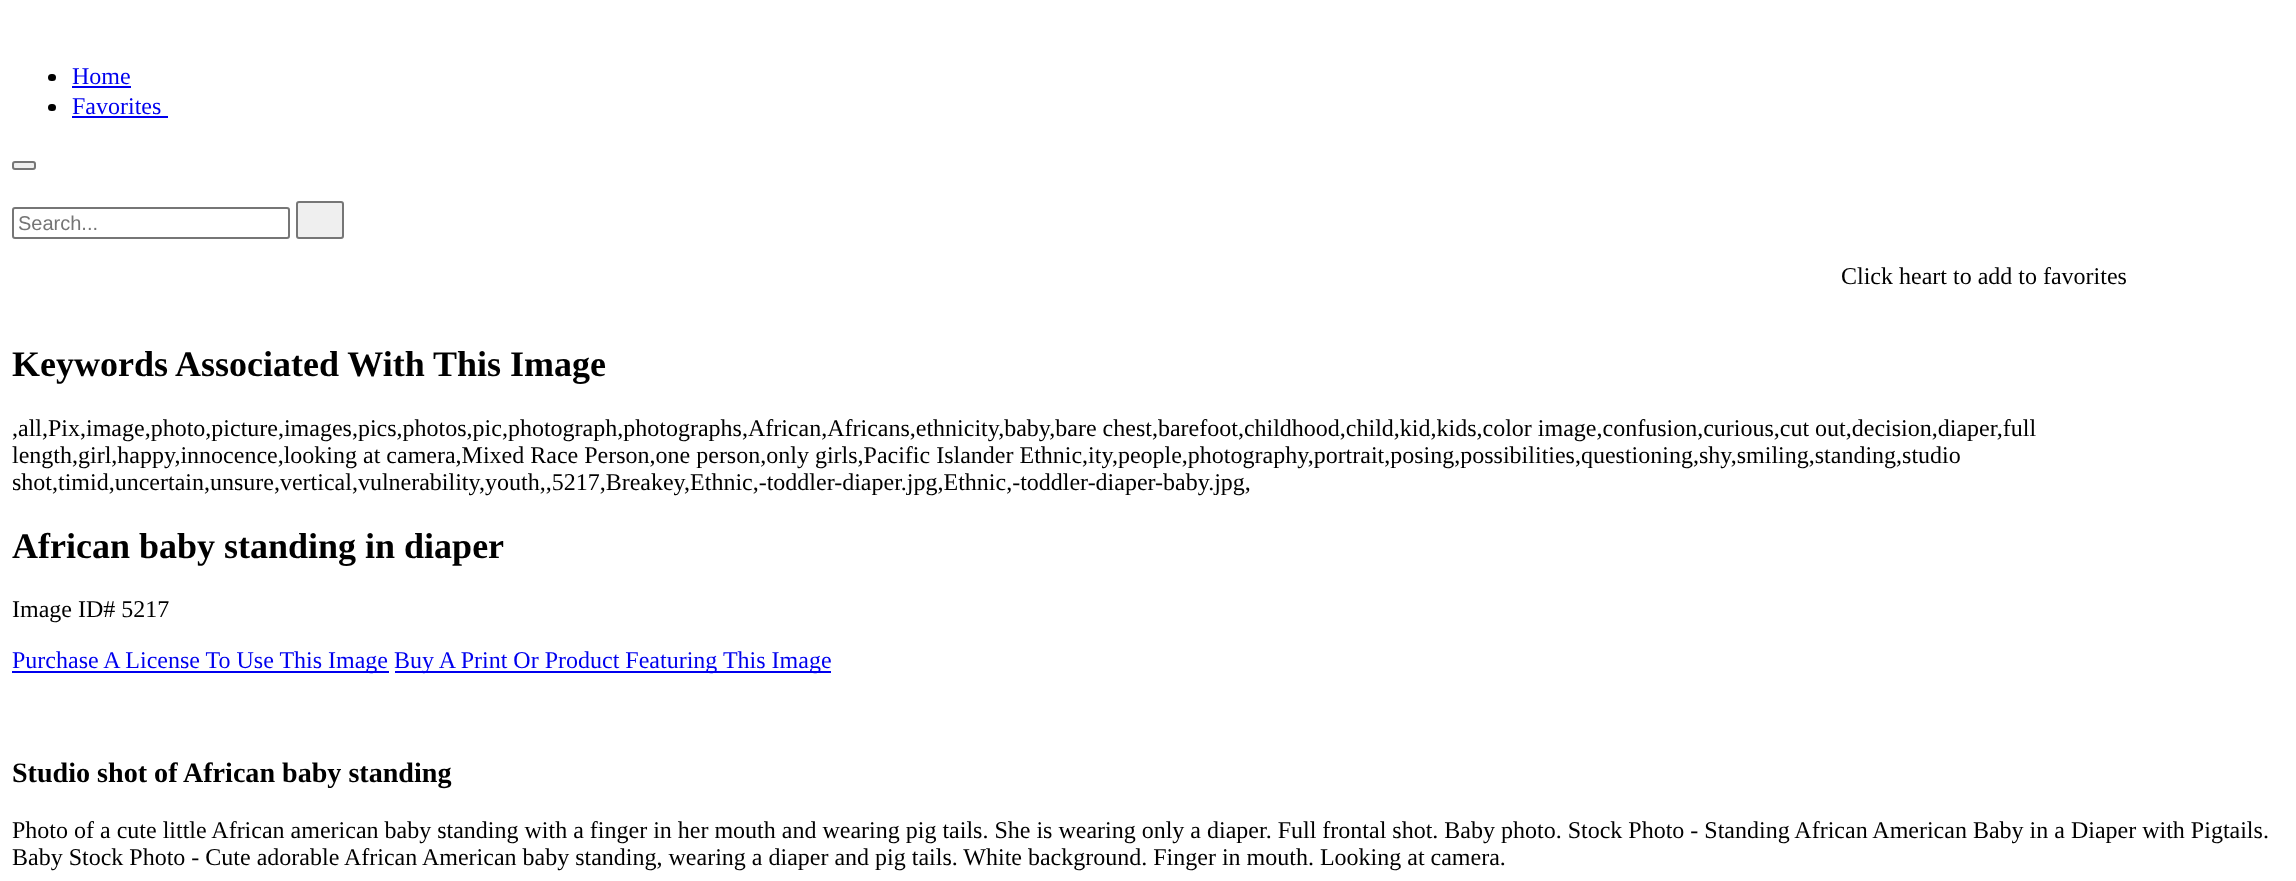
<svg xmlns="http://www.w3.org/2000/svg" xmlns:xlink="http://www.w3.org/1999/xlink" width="2296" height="881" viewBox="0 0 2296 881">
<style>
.cls-1{font:24px Liberation Serif;fill:#0000ee}
.cls-2{font:20px Liberation Sans;fill:#757575}
.cls-3{font:24px Liberation Serif;fill:#000000}
.cls-4{font:bold 36px Liberation Serif;fill:#000000}
.cls-5{font:bold 28.1px Liberation Serif;fill:#000000}
</style>
<rect width="100%" height="100%" fill="#ffffff"/>
<rect fill="#000000" x="48" y="74" width="8" height="7" rx="3.5"/>
<rect fill="#0000ee" x="72" y="86" width="59" height="2"/>
<rect fill="#000000" x="48" y="104" width="8" height="7" rx="3.5"/>
<rect fill="#0000ee" x="72" y="116" width="96" height="2"/>
<rect fill="#efefef" stroke="#767676" stroke-width="2" x="13" y="162" width="22" height="7" rx="2"/>
<rect fill="none" stroke="#767676" stroke-width="2" x="13" y="208" width="276" height="30" rx="2"/>
<rect fill="#efefef" stroke="#767676" stroke-width="2" x="297" y="202" width="46" height="36" rx="2"/>
<rect fill="#0000ee" x="12" y="671" width="377" height="2"/>
<rect fill="#0000ee" x="395" y="671" width="436" height="2"/>
<text class="cls-1"><tspan x="72" y="84">Home</tspan><tspan x="72" y="114">Favorites</tspan></text>
<text class="cls-2" x="18" y="230">Search...</text>
<text class="cls-3" x="1841" y="284">Click heart to add to favorites</text>
<text class="cls-4" x="12" y="376">Keywords Associated With This Image</text>
<text class="cls-3"><tspan x="12" y="436">,all,Pix,image,photo,picture,images,pics,photos,pic,photograph,photographs,African,Africans,ethnicity,baby,bare chest,barefoot,childhood,child,kid,kids,color image,confusion,curious,cut out,decision,diaper,full</tspan><tspan x="12" y="463">length,girl,happy,innocence,looking at camera,Mixed Race Person,one person,only girls,Pacific Islander Ethnic,ity,people,photography,portrait,posing,possibilities,questioning,shy,smiling,standing,studio</tspan><tspan x="12" y="490">shot,timid,uncertain,unsure,vertical,vulnerability,youth,,5217,Breakey,Ethnic,-toddler-diaper.jpg,Ethnic,-toddler-diaper-baby.jpg,</tspan></text>
<text class="cls-4" x="12" y="558">African baby standing in diaper</text>
<text class="cls-3" x="12" y="617">Image ID# 5217</text>
<text class="cls-1" x="12" y="668">Purchase A License To Use This Image</text>
<text class="cls-1" x="394" y="668">Buy A Print Or Product Featuring This Image</text>
<text class="cls-5" x="12" y="782">Studio shot of African baby standing</text>
<text class="cls-3"><tspan x="12" y="838">Photo of a cute little African american baby standing with a finger in her mouth and wearing pig tails. She is wearing only a diaper. Full frontal shot. Baby photo. Stock Photo - Standing African American Baby in a Diaper with Pigtails.</tspan><tspan x="12" y="865">Baby Stock Photo - Cute adorable African American baby standing, wearing a diaper and pig tails. White background. Finger in mouth. Looking at camera.</tspan></text>
</svg>
